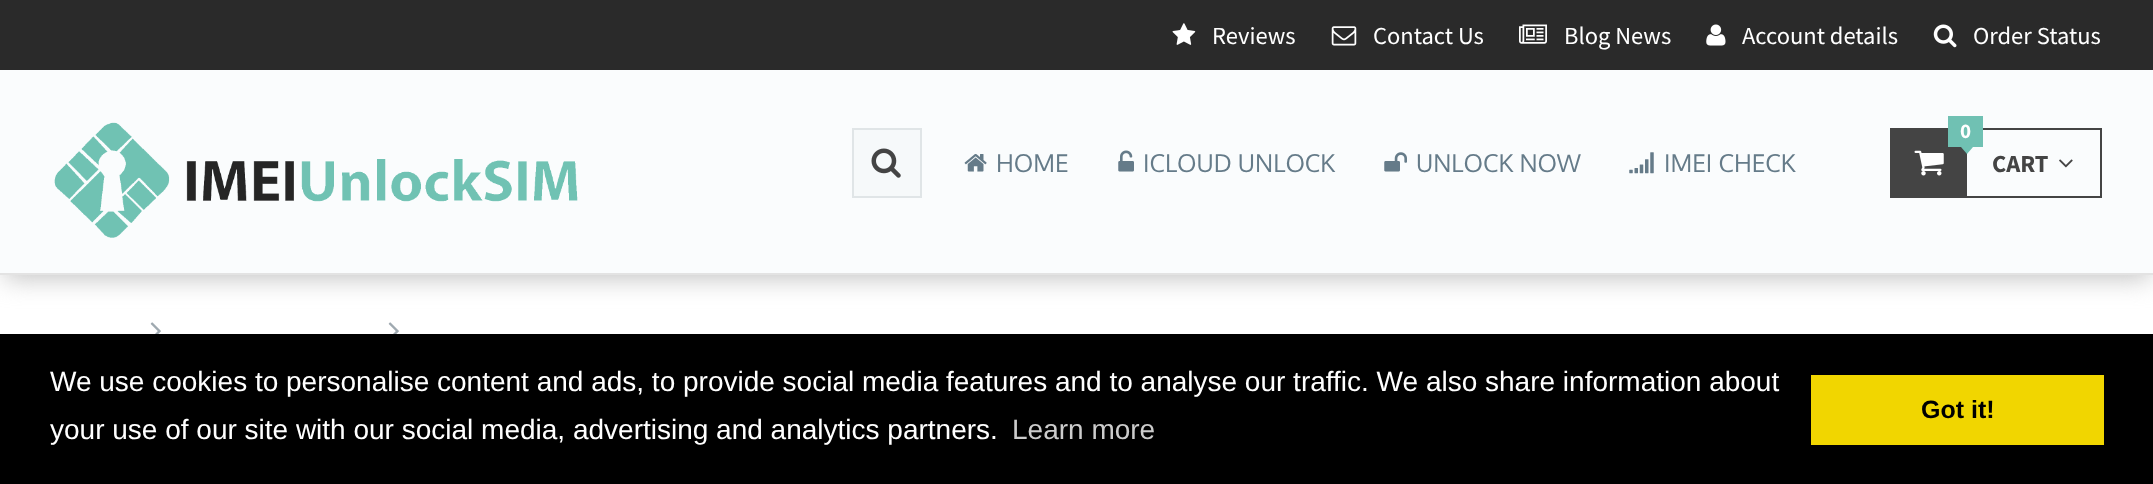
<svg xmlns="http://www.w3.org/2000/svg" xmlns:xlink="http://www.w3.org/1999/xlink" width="2153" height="484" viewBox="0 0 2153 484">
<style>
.cls-1{font:24.5px Source Sans Pro;fill:#ffffff}
.cls-2{font:24.5px Oxygen;fill:#657b89}
.cls-3{font:bold 21px Source Sans Pro;fill:#ffffff}
.cls-4{font:bold 24.5px Source Sans Pro;fill:#444444}
.cls-5{font:28px Liberation Sans;fill:#ffffff}
.cls-6{font:28px Liberation Sans;fill:#cccccc}
.cls-7{font:bold 25px Liberation Sans;fill:#000000}
</style>
<rect width="100%" height="100%" fill="#ffffff"/>
<rect fill="#c1c1c1" filter="blur(13px)" x="4" y="11" width="2147" height="267"/>
<rect fill="#fafcfd" x="0" y="70" width="2153" height="203"/>
<rect fill="#e3e3e3" x="0" y="273" width="2153" height="2"/>
<rect fill="#2a2a2a" x="0" y="0" width="2153" height="70"/>
<image xlink:href="image0.png" x="1172" y="23" width="24" height="22"/>
<image xlink:href="image1.png" x="1331" y="26" width="26" height="20"/>
<image xlink:href="image2.png" x="1519" y="24" width="28" height="20"/>
<image xlink:href="image3.png" x="1706" y="24" width="20" height="22"/>
<image xlink:href="image4.png" x="1933" y="24" width="24" height="24"/>
<image xlink:href="image5.png" x="54" y="122" width="524" height="116"/>
<rect fill="#f6f9fa" stroke="#e0e5e7" stroke-width="2" x="853" y="129" width="68" height="68"/>
<image xlink:href="image6.png" x="871" y="148" width="30" height="30"/>
<image xlink:href="image7.png" x="964" y="154" width="23" height="18"/>
<image xlink:href="image8.png" x="1118" y="150" width="16" height="22"/>
<image xlink:href="image9.png" x="1384" y="152" width="23" height="20"/>
<image xlink:href="image10.png" x="1629" y="152" width="25" height="22"/>
<rect fill="none" stroke="#444444" stroke-width="2" x="1891" y="129" width="210" height="68"/>
<rect fill="#444444" stroke="#444444" stroke-width="2" x="1891" y="129" width="75" height="68"/>
<rect fill="#70c1b3" x="1948" y="116" width="35" height="31"/>
<path fill="#70c1b3" d="M1958 143.5H1976L1967 154Z"/>
<image xlink:href="image11.png" x="1914" y="150" width="30" height="26"/>
<image xlink:href="image12.png" x="2059" y="159" width="14" height="9"/>
<image xlink:href="image13.png" x="150" y="322" width="11" height="12"/>
<image xlink:href="image13.png" x="388" y="322" width="11" height="12"/>
<rect fill="#000000" x="0" y="334" width="2153" height="150"/>
<rect fill="#f1d600" x="1811" y="375" width="293" height="70"/>
<text class="cls-1" x="1212" y="44">Reviews</text>
<text class="cls-1" x="1373" y="44">Contact Us</text>
<text class="cls-1" x="1564" y="44">Blog News</text>
<text class="cls-1" x="1742" y="44">Account details</text>
<text class="cls-1" x="1973" y="44">Order Status</text>
<text class="cls-2" x="996" y="172">HOME</text>
<text class="cls-2" x="1143" y="172">ICLOUD UNLOCK</text>
<text class="cls-2" x="1416" y="172">UNLOCK NOW</text>
<text class="cls-2" x="1664" y="172">IMEI CHECK</text>
<text class="cls-3" x="1960" y="138">0</text>
<text class="cls-4" x="1992" y="172">CART</text>
<text class="cls-5"><tspan x="50" y="391">We use cookies to personalise content and ads, to provide social media features and to analyse our traffic. We also share information about</tspan><tspan x="50" y="439">your use of our site with our social media, advertising and analytics partners.</tspan></text>
<text class="cls-6" x="1012" y="439">Learn more</text>
<text class="cls-7" x="1921" y="418">Got it!</text>
</svg>
